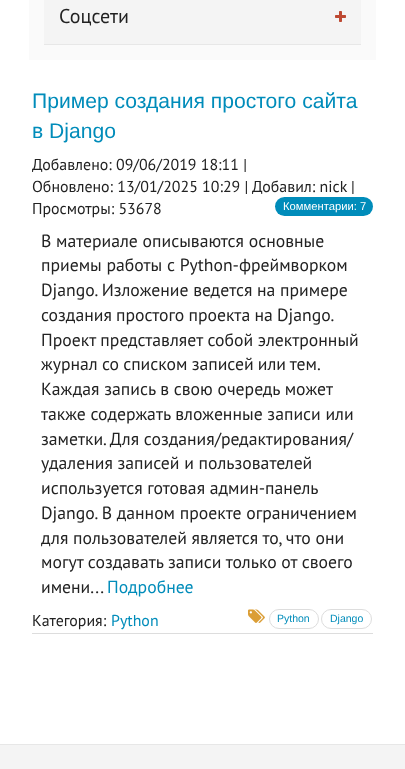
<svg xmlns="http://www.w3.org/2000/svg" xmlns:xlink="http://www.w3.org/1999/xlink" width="405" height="769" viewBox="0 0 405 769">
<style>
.cls-1{font:20px PT Sans;fill:#222222}
.cls-2{font:21.1px Liberation Sans;fill:#008cba}
.cls-3{font:15.9px PT Sans;fill:#222222}
.cls-4{font:11.25px Liberation Sans;fill:#ffffff}
.cls-5{font:17.7px PT Sans;fill:#222222}
.cls-6{font:17.7px PT Sans;fill:#008cba}
.cls-7{font:15.9px PT Sans;fill:#008cba}
.cls-8{font:10.5px Liberation Sans;fill:#008cba}
</style>
<rect width="100%" height="100%" fill="#ffffff"/>
<rect fill="#fafafa" x="29" y="0" width="347" height="60"/>
<rect fill="#f4f4f4" x="44" y="0" width="317" height="44"/>
<rect fill="#e7e7e7" x="44" y="44" width="317" height="1"/>
<image xlink:href="image0.png" x="335" y="11" width="11" height="11"/>
<rect fill="#008cba" x="275" y="197" width="98" height="19" rx="9.5"/>
<image xlink:href="image1.png" x="248" y="609" width="17" height="14"/>
<rect fill="none" stroke="#dddddd" x="269.5" y="609.5" width="49" height="19" rx="9.5"/>
<rect fill="none" stroke="#dddddd" x="321.5" y="609.5" width="50" height="19" rx="9.5"/>
<rect fill="#dddddd" x="32" y="633" width="341" height="1"/>
<rect fill="#f4f4f4" x="0" y="745" width="405" height="24"/>
<rect fill="#e7e7e7" x="0" y="744" width="405" height="1"/>
<text class="cls-1" x="59" y="23">Соцсети</text>
<text class="cls-2"><tspan x="32" y="108">Пример создания простого сайта</tspan><tspan x="32" y="138">в Django</tspan></text>
<text class="cls-3"><tspan x="32" y="170">Добавлено: 09/06/2019 18:11 |</tspan><tspan x="32" y="192">Обновлено: 13/01/2025 10:29 | Добавил: nick |</tspan><tspan x="32" y="214">Просмотры: 53678</tspan></text>
<text class="cls-4" x="283" y="210">Комментарии: 7</text>
<text class="cls-5"><tspan x="41" y="247">В материале описываются основные</tspan><tspan x="41" y="271">приемы работы с Python-фреймворком</tspan><tspan x="41" y="296">Django. Изложение ведется на примере</tspan><tspan x="41" y="321" word-spacing="-0.5">создания простого проекта на Django.</tspan><tspan x="41" y="346">Проект представляет собой электронный</tspan><tspan x="41" y="370" word-spacing="-0.5">журнал со списком записей или тем.</tspan><tspan x="41" y="395">Каждая запись в свою очередь может</tspan><tspan x="41" y="420">также содержать вложенные записи или</tspan><tspan x="41" y="445">заметки. Для создания/редактирования/</tspan><tspan x="41" y="469">удаления записей и пользователей</tspan><tspan x="41" y="494">используется готовая админ-панель</tspan><tspan x="41" y="519">Django. В данном проекте ограничением</tspan><tspan x="41" y="544">для пользователей является то, что они</tspan><tspan x="41" y="568">могут создавать записи только от своего</tspan><tspan x="41" y="593">имени...</tspan></text>
<text class="cls-6" x="107" y="593">Подробнее</text>
<text class="cls-3" x="32" y="626">Категория:</text>
<text class="cls-7" x="111" y="626">Python</text>
<text class="cls-8" x="277" y="622">Python</text>
<text class="cls-8" x="330" y="622">Django</text>
</svg>
